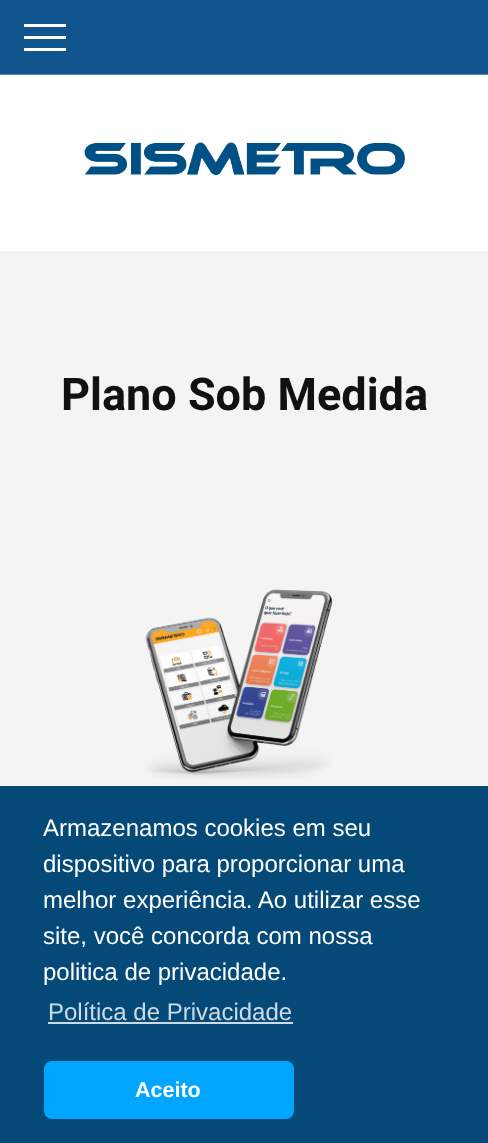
<svg xmlns="http://www.w3.org/2000/svg" xmlns:xlink="http://www.w3.org/1999/xlink" width="488" height="1143" viewBox="0 0 488 1143">
<style>
.cls-1{font:bold 45px Roboto;fill:#111111}
.cls-2{font:24px Liberation Sans;fill:#ffffff}
.cls-3{font:24px Liberation Sans;fill:#cddbe4}
.cls-4{font:bold 21.5px Liberation Sans;fill:#ffffff}
</style>
<rect width="100%" height="100%" fill="#ffffff"/>
<rect fill="#0f548d" x="0" y="0" width="488" height="74"/>
<rect fill="#5586ae" x="0" y="74" width="488" height="1"/>
<rect fill="#ffffff" x="24" y="24" width="42" height="3"/>
<rect fill="#ffffff" x="24" y="36" width="42" height="3"/>
<rect fill="#ffffff" x="24" y="48" width="42" height="3"/>
<image xlink:href="image0.png" x="84" y="142" width="321" height="34"/>
<rect fill="#f4f4f4" x="0" y="251" width="488" height="535"/>
<image xlink:href="image1.png" x="145" y="589" width="188" height="190"/>
<rect fill="#044978" x="0" y="786" width="488" height="357"/>
<rect fill="#cddbe4" x="48" y="1022" width="245" height="2"/>
<rect fill="#00a5ff" x="44" y="1061" width="250" height="58" rx="8"/>
<text class="cls-1" x="61" y="410">Plano Sob Medida</text>
<text class="cls-2"><tspan x="43" y="836">Armazenamos cookies em seu</tspan><tspan x="43" y="872">dispositivo para proporcionar uma</tspan><tspan x="43" y="908">melhor experiência. Ao utilizar esse</tspan><tspan x="43" y="944">site, você concorda com nossa</tspan><tspan x="43" y="980">politica de privacidade.</tspan></text>
<text class="cls-3" x="48" y="1020">Política de Privacidade</text>
<text class="cls-4" x="135" y="1097">Aceito</text>
</svg>
